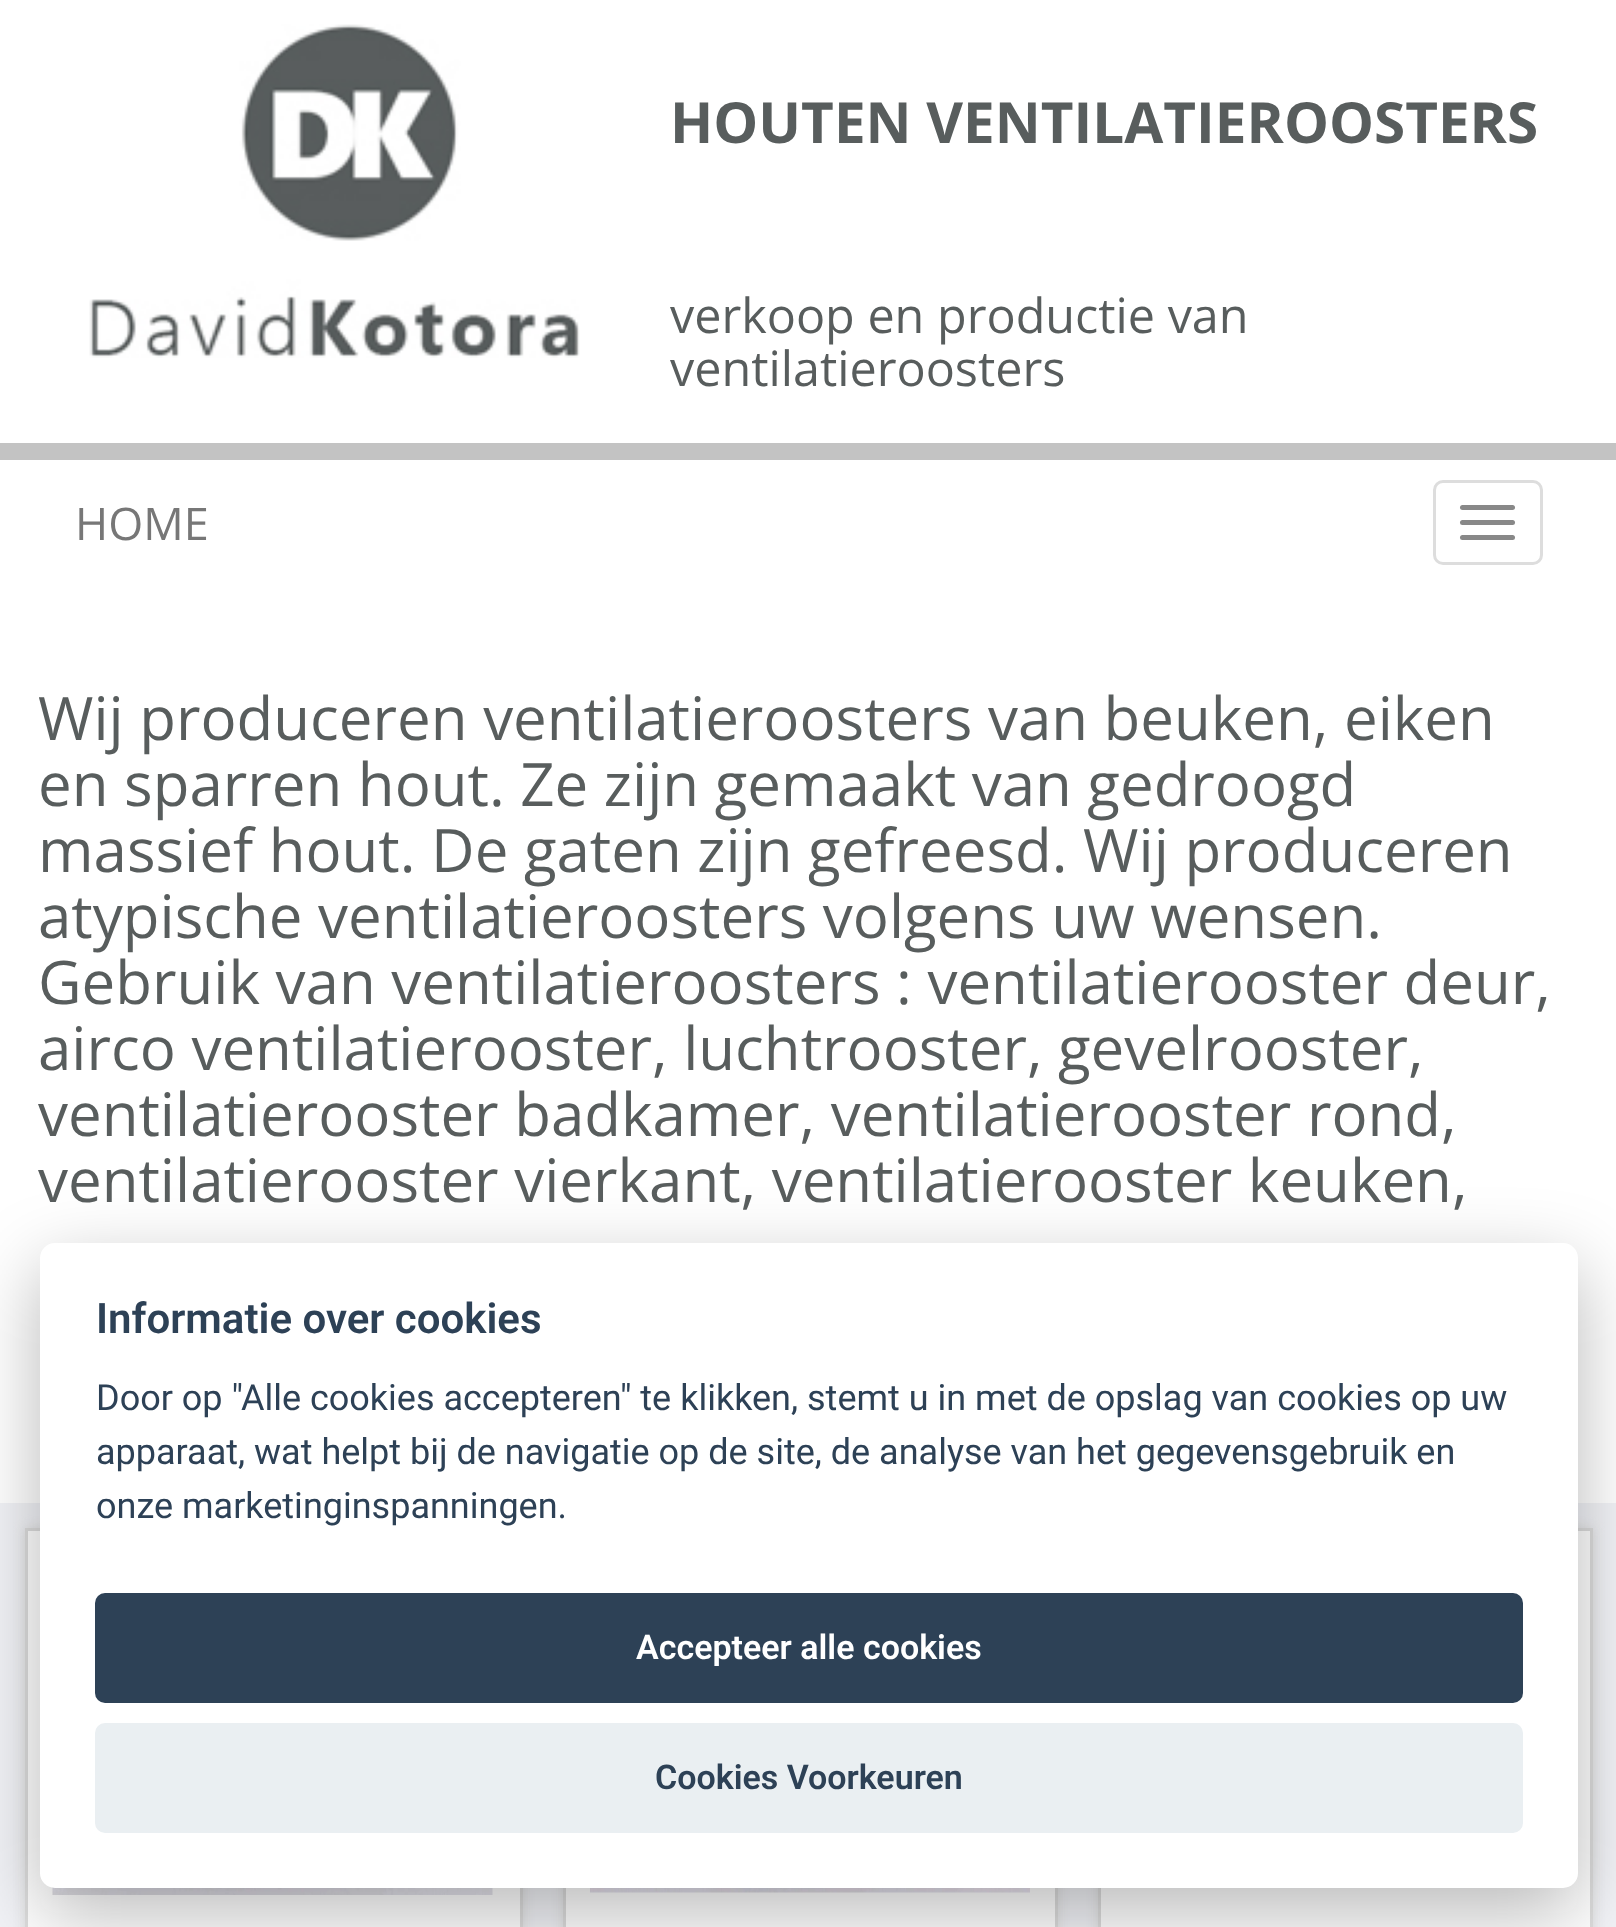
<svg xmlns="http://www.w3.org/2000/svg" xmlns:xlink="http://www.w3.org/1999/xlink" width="1616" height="1927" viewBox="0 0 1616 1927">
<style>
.cls-1{font:bold 56.6px Open Sans;fill:#585d5d}
.cls-2{font:48.5px Open Sans;fill:#585d5d}
.cls-3{font:45px Open Sans;fill:#777777}
.cls-4{font:60px Open Sans;fill:#585d5d}
.cls-5{font:600 42px Roboto;fill:#2d4156}
.cls-6{font:36px Roboto;fill:#2d4156}
.cls-7{font:600 34px Roboto;fill:#ffffff}
.cls-8{font:600 34px Roboto;fill:#2d4156}
</style>
<rect width="100%" height="100%" fill="#ffffff"/>
<image xlink:href="image0.png" x="89" y="24" width="491" height="334"/>
<rect fill="#c3c3c3" x="0" y="443" width="1616" height="17"/>
<rect fill="none" stroke="#dddddd" stroke-width="3" x="1434.5" y="481.5" width="107" height="82" rx="8.5"/>
<rect fill="#888888" x="1460" y="505" width="55" height="5" rx="2.5"/>
<rect fill="#888888" x="1460" y="520" width="55" height="5" rx="2.5"/>
<rect fill="#888888" x="1460" y="535" width="55" height="5" rx="2.5"/>
<rect fill="#f2f3f7" x="0" y="1503" width="1616" height="424"/>
<rect fill="#dddddd" filter="blur(6px)" x="25" y="1528" width="498" height="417"/>
<rect fill="#ffffff" stroke="#dddddd" stroke-width="3" x="26.5" y="1529.5" width="495" height="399"/>
<image xlink:href="image1.png" x="52" y="1887" width="441" height="8"/>
<rect fill="#dddddd" filter="blur(6px)" x="563" y="1528" width="495" height="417"/>
<rect fill="#ffffff" x="566" y="1888" width="489" height="39"/>
<rect fill="none" stroke="#dddddd" stroke-width="3" x="564.5" y="1529.5" width="492" height="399"/>
<image xlink:href="image2.png" x="590" y="1888" width="440" height="5"/>
<rect fill="#dddddd" filter="blur(6px)" x="1098" y="1528" width="495" height="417"/>
<rect fill="#ffffff" stroke="#dddddd" stroke-width="3" x="1099.5" y="1529.5" width="492" height="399"/>
<rect fill="#020203" fill-opacity="0.28" filter="blur(37.5px)" x="40" y="1268" width="1538" height="645" rx="15"/>
<rect fill="#ffffff" x="40" y="1243" width="1538" height="645" rx="15"/>
<rect fill="#2d4156" x="95" y="1593" width="1428" height="110" rx="10"/>
<rect fill="#eaeff2" x="95" y="1723" width="1428" height="110" rx="10"/>
<text class="cls-1" x="670" y="143">HOUTEN VENTILATIEROOSTERS</text>
<text class="cls-2"><tspan x="670" y="333">verkoop en productie van</tspan><tspan x="670" y="386">ventilatieroosters</tspan></text>
<text class="cls-3" x="75" y="540">HOME</text>
<text class="cls-4"><tspan x="38" y="740">Wij produceren ventilatieroosters van beuken, eiken</tspan><tspan x="38" y="806">en sparren hout. Ze zijn gemaakt van gedroogd</tspan><tspan x="38" y="872">massief hout. De gaten zijn gefreesd. Wij produceren</tspan><tspan x="38" y="938">atypische ventilatieroosters volgens uw wensen.</tspan><tspan x="38" y="1004">Gebruik van ventilatieroosters : ventilatierooster deur,</tspan><tspan x="38" y="1070">airco ventilatierooster, luchtrooster, gevelrooster,</tspan><tspan x="38" y="1136">ventilatierooster badkamer, ventilatierooster rond,</tspan><tspan x="38" y="1202">ventilatierooster vierkant, ventilatierooster keuken,</tspan></text>
<text class="cls-5" x="96" y="1333">Informatie over cookies</text>
<text class="cls-6"><tspan x="96" y="1410">Door op "Alle cookies accepteren" te klikken, stemt u in met de opslag van cookies op uw</tspan><tspan x="96" y="1464">apparaat, wat helpt bij de navigatie op de site, de analyse van het gegevensgebruik en</tspan><tspan x="96" y="1518">onze marketinginspanningen.</tspan></text>
<text class="cls-7" x="636" y="1659">Accepteer alle cookies</text>
<text class="cls-8" x="655" y="1789">Cookies Voorkeuren</text>
</svg>
